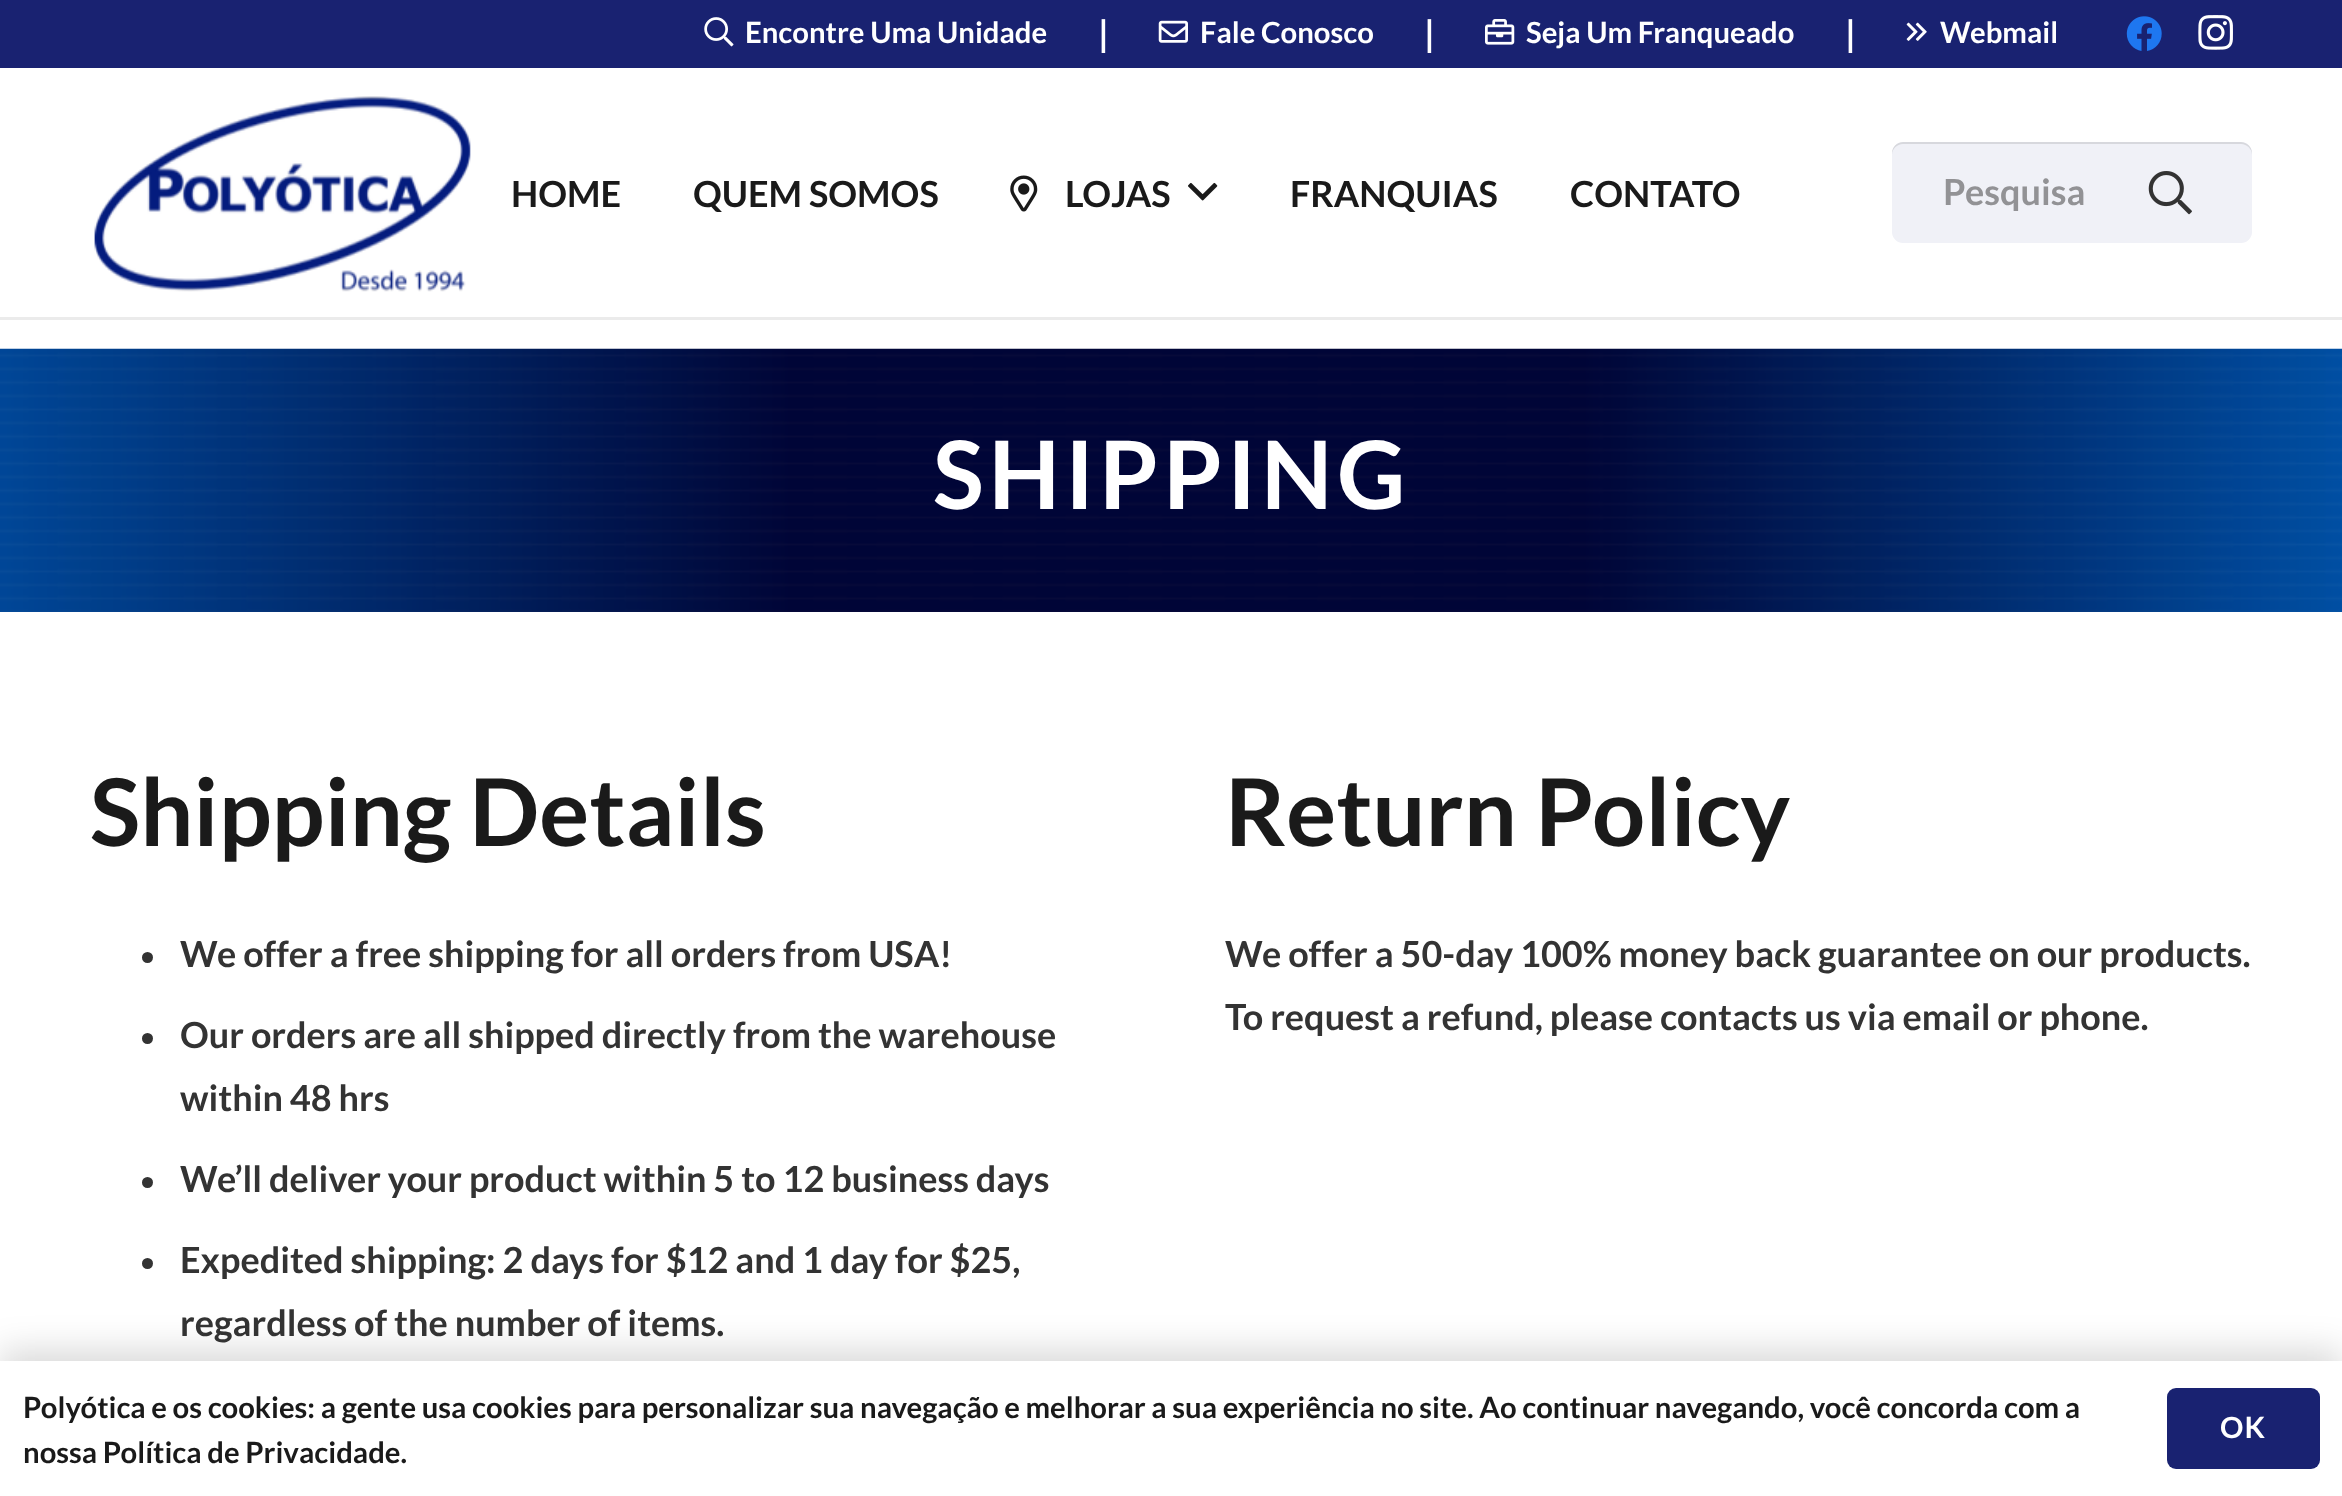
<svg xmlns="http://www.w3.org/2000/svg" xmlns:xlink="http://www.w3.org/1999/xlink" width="2342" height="1496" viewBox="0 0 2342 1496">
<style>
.cls-1{font:bold 29.25px Lato;fill:#ffffff}
.cls-2{font:bold 36px Lato;fill:#ffffff}
.cls-3{font:bold 36px Lato;fill:#1a1a1a}
.cls-4{font:bold 36px Lato;fill:#929295}
.cls-5{font:bold 94.5px Lato;letter-spacing:4.75px;fill:#ffffff}
.cls-6{font:bold 93.5px Lato;fill:#1a1a1a}
.cls-7{font:bold 36px Lato;fill:#333333}
.cls-8{font:bold 29.25px Lato;fill:#1a1a1a}
.cls-9{font:bold 29.25px Lato;letter-spacing:1px;fill:#ffffff}
</style>
<rect width="100%" height="100%" fill="#ffffff"/>
<rect fill="#192271" x="0" y="0" width="2342" height="68"/>
<image xlink:href="image0.png" x="704" y="17" width="30" height="30"/>
<image xlink:href="image1.png" x="1158" y="20" width="30" height="23"/>
<image xlink:href="image2.png" x="1485" y="19" width="30" height="26"/>
<image xlink:href="image3.png" x="1906" y="22" width="21" height="19"/>
<image xlink:href="image4.png" x="2126" y="16" width="36" height="35"/>
<image xlink:href="image5.png" x="2198" y="15" width="35" height="35"/>
<rect fill="#ebebeb" x="0" y="317" width="2342" height="3"/>
<image xlink:href="image6.png" x="94" y="96" width="377" height="196"/>
<image xlink:href="image7.png" x="1010" y="175" width="28" height="37"/>
<image xlink:href="image8.png" x="1188" y="182" width="30" height="19"/>
<rect fill="#f0f1f7" x="1892" y="142" width="360" height="101" rx="11"/>
<path fill="#000000" fill-opacity="0.1" d="M1903 144H2241C2247 144 2252 149 2252 155V153C2252 147 2247 142 2241 142H1903C1897 142 1892 147 1892 153V155C1892 149 1897 144 1903 144Z"/>
<image xlink:href="image9.png" x="2148" y="171" width="44" height="44"/>
<image xlink:href="image10.png" x="0" y="348" width="2342" height="264"/>
<circle fill="#333333" cx="147.5" cy="957.5" r="5.5"/>
<circle fill="#333333" cx="147.5" cy="1038.5" r="5.5"/>
<circle fill="#333333" cx="147.5" cy="1182.5" r="5.5"/>
<circle fill="#333333" cx="147.5" cy="1263.5" r="5.5"/>
<rect fill="#000000" fill-opacity="0.15" filter="blur(17px)" x="0" y="1350" width="2342" height="135"/>
<rect fill="#ffffff" x="0" y="1361" width="2342" height="135"/>
<rect fill="#192271" x="2167" y="1388" width="153" height="81" rx="9"/>
<text class="cls-1" x="745" y="43">Encontre Uma Unidade</text>
<text class="cls-2" x="1098" y="47">|</text>
<text class="cls-1" x="1200" y="43">Fale Conosco</text>
<text class="cls-2" x="1424" y="47">|</text>
<text class="cls-1" x="1526" y="43">Seja Um Franqueado</text>
<text class="cls-2" x="1845" y="47">|</text>
<text class="cls-1" x="1940" y="43">Webmail</text>
<text class="cls-3" x="511" y="207">HOME</text>
<text class="cls-3" x="693" y="207">QUEM SOMOS</text>
<text class="cls-3" x="1065" y="207">LOJAS</text>
<text class="cls-3" x="1290" y="207">FRANQUIAS</text>
<text class="cls-3" x="1570" y="207">CONTATO</text>
<text class="cls-4" x="1943" y="205">Pesquisa</text>
<text class="cls-5" x="933" y="509">SHIPPING</text>
<text class="cls-6" x="90" y="846">Shipping Details</text>
<text class="cls-7" x="180" y="967">We offer a free shipping for all orders from USA!</text>
<text class="cls-7"><tspan x="180" y="1048">Our orders are all shipped directly from the warehouse</tspan><tspan x="180" y="1111">within 48 hrs</tspan></text>
<text class="cls-7" x="180" y="1192">We’ll deliver your product within 5 to 12 business days</text>
<text class="cls-7"><tspan x="180" y="1273">Expedited shipping: 2 days for $12 and 1 day for $25,</tspan><tspan x="180" y="1336">regardless of the number of items.</tspan></text>
<text class="cls-6" x="1225" y="846">Return Policy</text>
<text class="cls-7"><tspan x="1225" y="967">We offer a 50-day 100% money back guarantee on our products.</tspan><tspan x="1225" y="1030">To request a refund, please contacts us via email or phone.</tspan></text>
<text class="cls-8"><tspan x="23" y="1418">Polyótica e os cookies: a gente usa cookies para personalizar sua navegação e melhorar a sua experiência no site. Ao continuar navegando, você concorda com a</tspan><tspan x="23" y="1463">nossa Política de Privacidade.</tspan></text>
<text class="cls-9" x="2220" y="1438">OK</text>
</svg>
